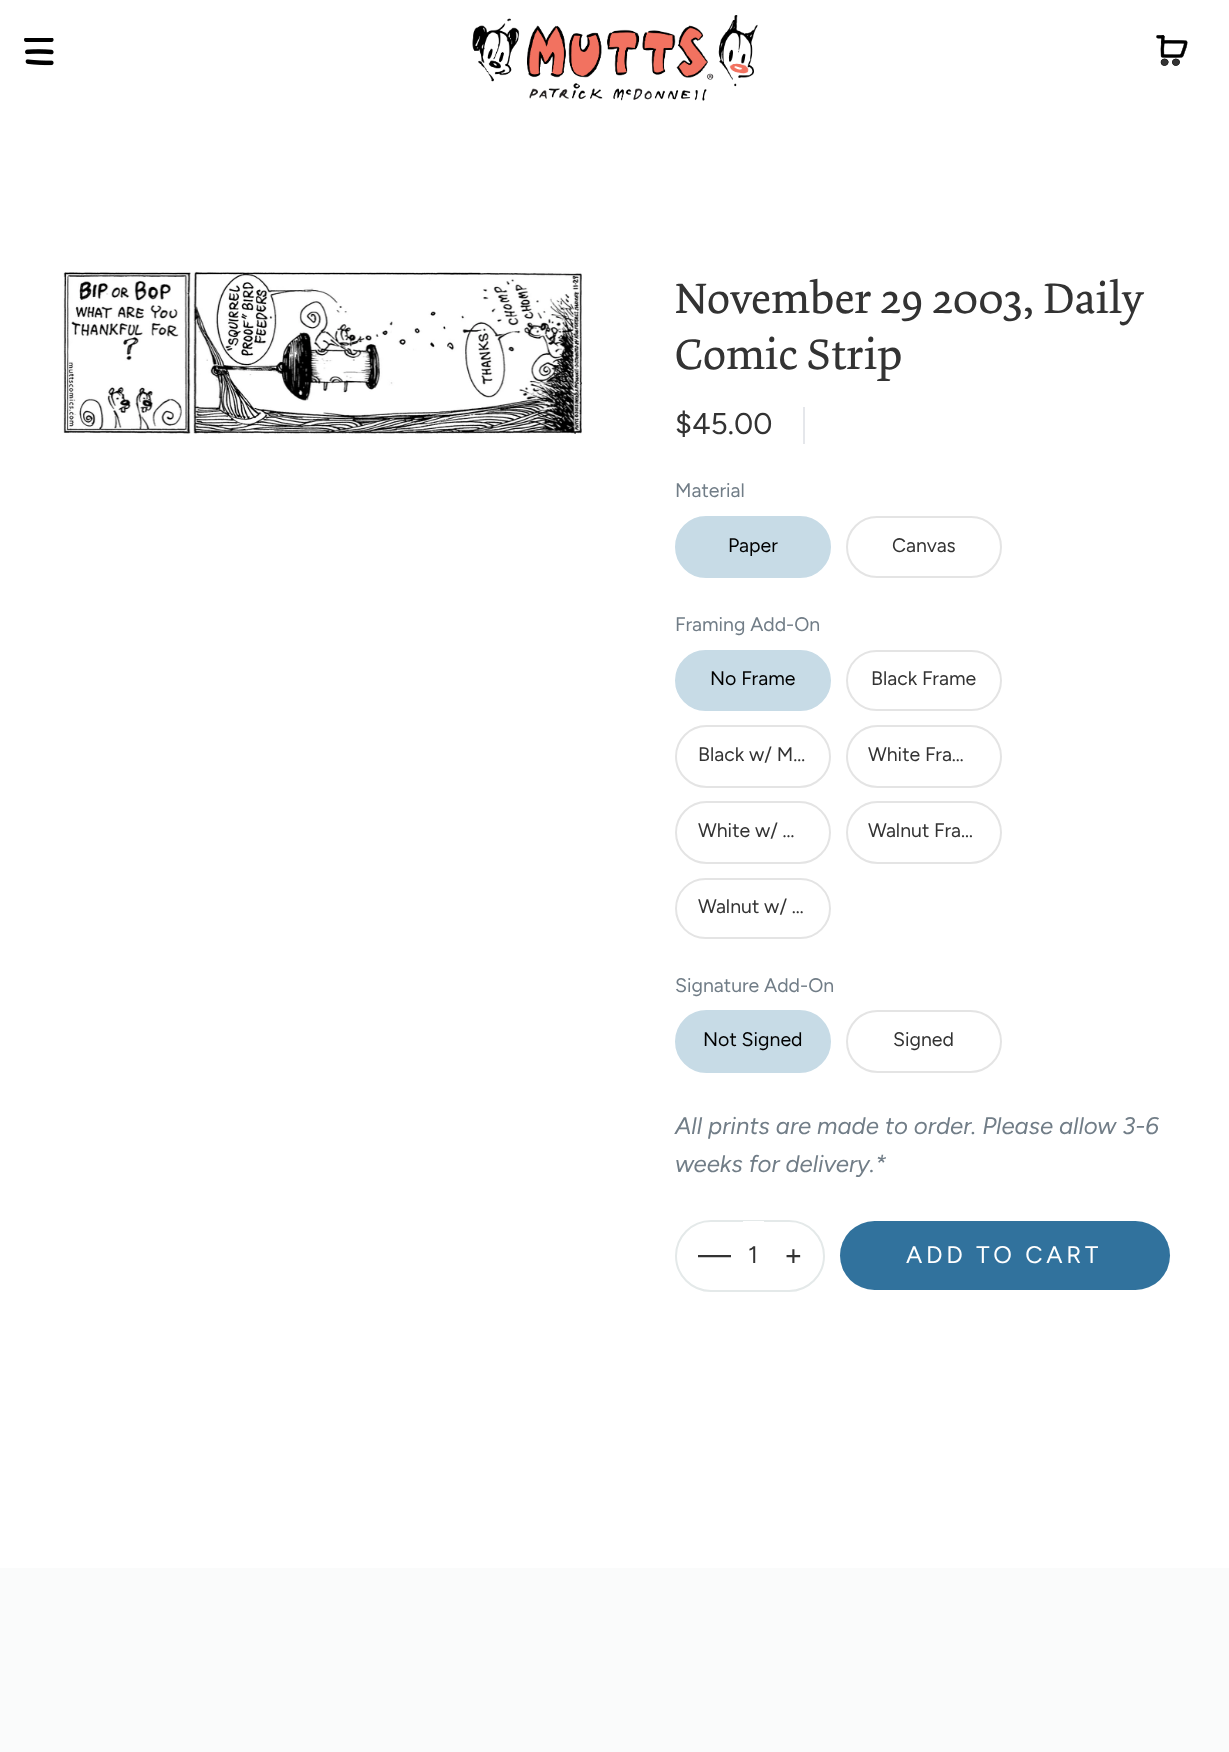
<svg xmlns="http://www.w3.org/2000/svg" xmlns:xlink="http://www.w3.org/1999/xlink" width="1229" height="1752" viewBox="0 0 1229 1752">
<style>
.cls-1{font:45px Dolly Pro;fill:#333333}
.cls-2{font:30px Figtree;fill:#333333}
.cls-3{font:19.5px Figtree;fill:#717d87}
.cls-4{font:19.5px Figtree;fill:#000000}
.cls-5{font:19.5px Figtree;fill:#333333}
.cls-6{font:italic 24px Figtree;fill:#717d87}
.cls-7{font:24px Figtree;fill:#333333}
.cls-8{font:24px Figtree;letter-spacing:3.75px;fill:#ffffff}
</style>
<rect width="100%" height="100%" fill="#ffffff"/>
<image xlink:href="image0.png" x="24" y="38" width="30" height="28"/>
<image xlink:href="image1.png" x="472" y="15" width="286" height="86"/>
<image xlink:href="image2.png" x="1156" y="35" width="32" height="31"/>
<image xlink:href="image3.png" x="63" y="271" width="519" height="163"/>
<rect fill="#e5e7eb" x="803" y="407" width="2" height="37"/>
<rect fill="#c7dbe6" stroke="#c7dbe6" stroke-width="2" x="676" y="517" width="154" height="60" rx="30"/>
<rect fill="none" stroke="#e4e4e4" stroke-width="2" x="847" y="517" width="154" height="60" rx="30"/>
<rect fill="#c7dbe6" stroke="#c7dbe6" stroke-width="2" x="676" y="651" width="154" height="59" rx="29.5"/>
<rect fill="none" stroke="#e4e4e4" stroke-width="2" x="847" y="651" width="154" height="59" rx="29.5"/>
<rect fill="none" stroke="#e4e4e4" stroke-width="2" x="676" y="726" width="154" height="61" rx="30.5"/>
<rect fill="none" stroke="#e4e4e4" stroke-width="2" x="847" y="726" width="154" height="61" rx="30.5"/>
<rect fill="none" stroke="#e4e4e4" stroke-width="2" x="676" y="802" width="154" height="61" rx="30.5"/>
<rect fill="none" stroke="#e4e4e4" stroke-width="2" x="847" y="802" width="154" height="61" rx="30.5"/>
<rect fill="none" stroke="#e4e4e4" stroke-width="2" x="676" y="879" width="154" height="59" rx="29.5"/>
<rect fill="#c7dbe6" stroke="#c7dbe6" stroke-width="2" x="676" y="1011" width="154" height="61" rx="30.5"/>
<rect fill="none" stroke="#e4e4e4" stroke-width="2" x="847" y="1011" width="154" height="61" rx="30.5"/>
<rect fill="none" stroke="#e4e9e9" stroke-width="2" x="676" y="1221" width="148" height="70" rx="35"/>
<rect fill="#ffffff" x="743" y="1221" width="21" height="1"/>
<rect fill="#31729d" x="840" y="1221" width="330" height="69" rx="34.5"/>
<rect fill="#fafbfb" x="0" y="1568" width="1229" height="184"/>
<text class="cls-1"><tspan x="675" y="313">November 29 2003, Daily</tspan><tspan x="675" y="369">Comic Strip</tspan></text>
<text class="cls-2" x="675" y="434">$45.00</text>
<text class="cls-3" x="675" y="497">Material</text>
<text class="cls-4" x="728" y="552">Paper</text>
<text class="cls-5" x="892" y="552">Canvas</text>
<text class="cls-3" x="675" y="631">Framing Add-On</text>
<text class="cls-4" x="710" y="685">No Frame</text>
<text class="cls-5" x="871" y="685">Black Frame</text>
<text class="cls-5" x="698" y="761">Black w/ M…</text>
<text class="cls-5" x="868" y="761">White Fra…</text>
<text class="cls-5" x="698" y="837">White w/ …</text>
<text class="cls-5" x="868" y="837">Walnut Fra…</text>
<text class="cls-5" x="698" y="913">Walnut w/ …</text>
<text class="cls-3" x="675" y="992">Signature Add-On</text>
<text class="cls-4" x="703" y="1046">Not Signed</text>
<text class="cls-5" x="893" y="1046">Signed</text>
<text class="cls-6"><tspan x="675" y="1134">All prints are made to order. Please allow 3-6</tspan><tspan x="675" y="1172">weeks for delivery.*</tspan></text>
<text class="cls-2" x="698" y="1265">—</text>
<text class="cls-7" x="748" y="1263">1</text>
<text class="cls-2" x="784" y="1265">+</text>
<text class="cls-8" x="906" y="1263">ADD TO CART</text>
</svg>
